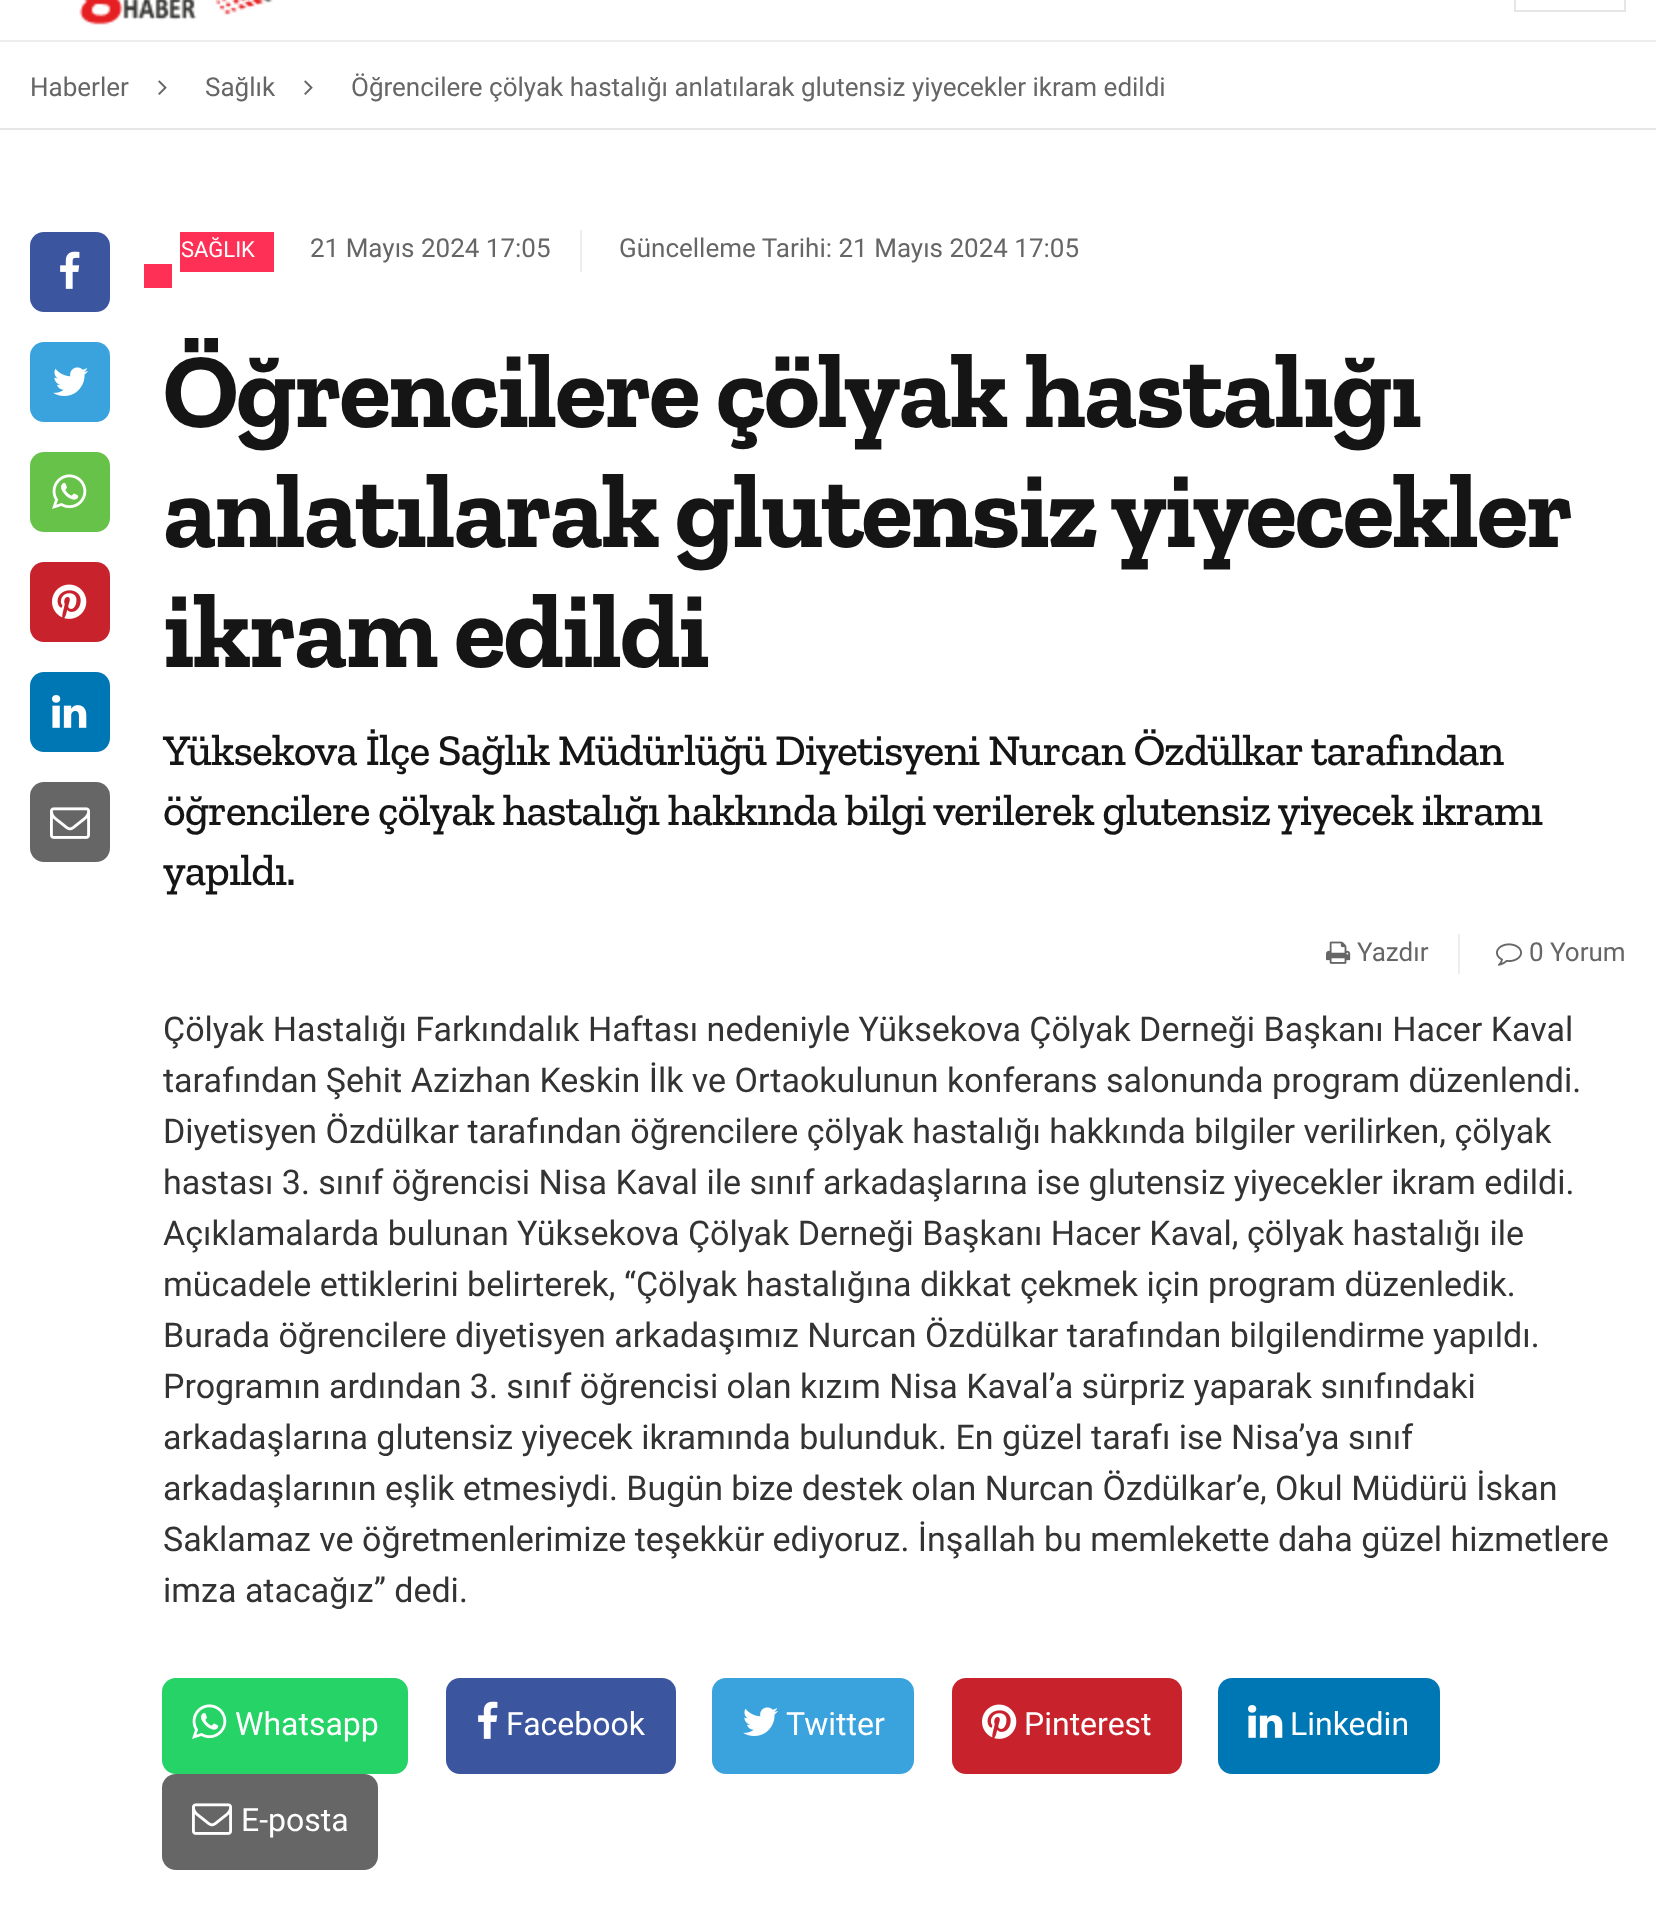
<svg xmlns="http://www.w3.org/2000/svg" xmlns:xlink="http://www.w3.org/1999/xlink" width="1656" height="1920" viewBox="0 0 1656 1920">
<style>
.cls-1{font:26px Roboto;fill:#666666}
.cls-2{font:22px Roboto;fill:#ffffff}
.cls-3{font:bold 106px Zilla Slab;letter-spacing:-2px;fill:#151515}
.cls-4{font:500 44px Zilla Slab;letter-spacing:-1px;fill:#151515}
.cls-5{font:34px Roboto;fill:#333333}
.cls-6{font:32px Roboto;fill:#ffffff}
</style>
<rect width="100%" height="100%" fill="#ffffff"/>
<rect fill="#ededed" x="0" y="40" width="1656" height="2"/>
<image xlink:href="image0.png" x="79" y="0" width="194" height="25"/>
<rect fill="none" stroke="#e6e6e6" stroke-width="2" x="1515" y="-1" width="110" height="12"/>
<rect fill="#e6e6e6" x="0" y="128" width="1656" height="2"/>
<image xlink:href="image1.png" x="158" y="80" width="9" height="15"/>
<image xlink:href="image1.png" x="304" y="80" width="9" height="15"/>
<rect fill="#3b559f" x="30" y="232" width="80" height="80" rx="14"/>
<image xlink:href="image2.png" x="60" y="251" width="20" height="38"/>
<rect fill="#3aa3de" x="30" y="342" width="80" height="80" rx="14"/>
<image xlink:href="image3.png" x="53" y="367" width="35" height="29"/>
<rect fill="#67c249" x="30" y="452" width="80" height="80" rx="14"/>
<image xlink:href="image4.png" x="52" y="474" width="35" height="35"/>
<rect fill="#c8232c" x="30" y="562" width="80" height="80" rx="14"/>
<image xlink:href="image5.png" x="52" y="584" width="35" height="35"/>
<rect fill="#0077b5" x="30" y="672" width="80" height="80" rx="14"/>
<image xlink:href="image6.png" x="52" y="695" width="35" height="33"/>
<rect fill="#666666" x="30" y="782" width="80" height="80" rx="14"/>
<image xlink:href="image7.png" x="50" y="807" width="40" height="32"/>
<rect fill="#eeeeee" x="580" y="230" width="2" height="42"/>
<rect fill="#ff3055" x="144" y="264" width="28" height="24"/>
<rect fill="#ff3055" x="180" y="232" width="94" height="40"/>
<rect fill="#eeeeee" x="1458" y="934" width="2" height="40"/>
<image xlink:href="image8.png" x="1326" y="941" width="25" height="23"/>
<image xlink:href="image9.png" x="1496" y="943" width="26" height="23"/>
<rect fill="#25d366" x="162" y="1678" width="246" height="96" rx="14"/>
<image xlink:href="image10.png" x="192" y="1704" width="35" height="35"/>
<rect fill="#3b559f" x="446" y="1678" width="230" height="96" rx="14"/>
<image xlink:href="image2.png" x="478" y="1701" width="20" height="38"/>
<rect fill="#3aa3de" x="712" y="1678" width="202" height="96" rx="14"/>
<image xlink:href="image3.png" x="743" y="1707" width="35" height="29"/>
<rect fill="#c8232c" x="952" y="1678" width="230" height="96" rx="14"/>
<image xlink:href="image5.png" x="982" y="1704" width="35" height="35"/>
<rect fill="#0077b5" x="1218" y="1678" width="222" height="96" rx="14"/>
<image xlink:href="image6.png" x="1248" y="1705" width="35" height="33"/>
<rect fill="#666666" x="162" y="1774" width="216" height="96" rx="14"/>
<image xlink:href="image7.png" x="192" y="1803" width="40" height="32"/>
<text class="cls-1" x="30" y="96">Haberler</text>
<text class="cls-1" x="205" y="96">Sağlık</text>
<text class="cls-1" x="351" y="96">Öğrencilere çölyak hastalığı anlatılarak glutensiz yiyecekler ikram edildi</text>
<text class="cls-2" x="181" y="257">SAĞLIK</text>
<text class="cls-1" x="310" y="257">21 Mayıs 2024 17:05</text>
<text class="cls-1" x="619" y="257">Güncelleme Tarihi: 21 Mayıs 2024 17:05</text>
<text class="cls-3"><tspan x="163" y="427">Öğrencilere çölyak hastalığı</tspan><tspan x="163" y="547" word-spacing="-1">anlatılarak glutensiz yiyecekler</tspan><tspan x="163" y="667">ikram edildi</tspan></text>
<text class="cls-4"><tspan x="163" y="765">Yüksekova İlçe Sağlık Müdürlüğü Diyetisyeni Nurcan Özdülkar tarafından</tspan><tspan x="163" y="825">öğrencilere çölyak hastalığı hakkında bilgi verilerek glutensiz yiyecek ikramı</tspan><tspan x="163" y="885">yapıldı.</tspan></text>
<text class="cls-1" x="1357" y="961">Yazdır</text>
<text class="cls-1" x="1529" y="961">0 Yorum</text>
<text class="cls-5"><tspan x="163" y="1041">Çölyak Hastalığı Farkındalık Haftası nedeniyle Yüksekova Çölyak Derneği Başkanı Hacer Kaval</tspan><tspan x="163" y="1092">tarafından Şehit Azizhan Keskin İlk ve Ortaokulunun konferans salonunda program düzenlendi.</tspan><tspan x="163" y="1143">Diyetisyen Özdülkar tarafından öğrencilere çölyak hastalığı hakkında bilgiler verilirken, çölyak</tspan><tspan x="163" y="1194">hastası 3. sınıf öğrencisi Nisa Kaval ile sınıf arkadaşlarına ise glutensiz yiyecekler ikram edildi.</tspan><tspan x="163" y="1245">Açıklamalarda bulunan Yüksekova Çölyak Derneği Başkanı Hacer Kaval, çölyak hastalığı ile</tspan><tspan x="163" y="1296">mücadele ettiklerini belirterek, “Çölyak hastalığına dikkat çekmek için program düzenledik.</tspan><tspan x="163" y="1347">Burada öğrencilere diyetisyen arkadaşımız Nurcan Özdülkar tarafından bilgilendirme yapıldı.</tspan><tspan x="163" y="1398">Programın ardından 3. sınıf öğrencisi olan kızım Nisa Kaval’a sürpriz yaparak sınıfındaki</tspan><tspan x="163" y="1449">arkadaşlarına glutensiz yiyecek ikramında bulunduk. En güzel tarafı ise Nisa’ya sınıf</tspan><tspan x="163" y="1500">arkadaşlarının eşlik etmesiydi. Bugün bize destek olan Nurcan Özdülkar’e, Okul Müdürü İskan</tspan><tspan x="163" y="1551">Saklamaz ve öğretmenlerimize teşekkür ediyoruz. İnşallah bu memlekette daha güzel hizmetlere</tspan><tspan x="163" y="1602">imza atacağız” dedi.</tspan></text>
<text class="cls-6" x="235" y="1735">Whatsapp</text>
<text class="cls-6" x="506" y="1735">Facebook</text>
<text class="cls-6" x="786" y="1735">Twitter</text>
<text class="cls-6" x="1024" y="1735">Pinterest</text>
<text class="cls-6" x="1290" y="1735">Linkedin</text>
<text class="cls-6" x="241" y="1831">E-posta</text>
</svg>
